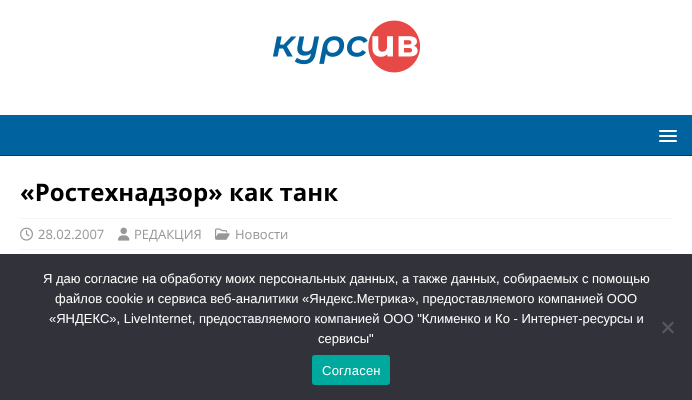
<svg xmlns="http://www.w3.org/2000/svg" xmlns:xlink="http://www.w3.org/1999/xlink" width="692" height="400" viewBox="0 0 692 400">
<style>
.cls-1{font:bold 24px Open Sans;fill:#000000}
.cls-2{font:13px Open Sans;fill:#979797}
.cls-3{font:13px Liberation Sans;fill:#ffffff}
.cls-4{font:13px Liberation Sans;letter-spacing:0.25px;fill:#ffffff}
</style>
<rect width="100%" height="100%" fill="#ffffff"/>
<image xlink:href="image0.png" x="272" y="20" width="149" height="53"/>
<rect fill="#00639f" x="0" y="115" width="692" height="40"/>
<rect fill="#2a2a2a" x="0" y="155" width="692" height="1"/>
<rect fill="#ffffff" x="659" y="130" width="18" height="2" rx="1"/>
<rect fill="#ffffff" x="659" y="135" width="18" height="2" rx="1"/>
<rect fill="#ffffff" x="659" y="140" width="18" height="2" rx="1"/>
<path fill="none" stroke="#ebebeb" stroke-dasharray="1 1" d="M20 218.5H672"/>
<path fill="none" stroke="#ebebeb" stroke-dasharray="1 1" d="M20 249.5H672"/>
<image xlink:href="image1.png" x="20" y="227" width="13" height="14"/>
<image xlink:href="image2.png" x="118" y="227" width="12" height="14"/>
<image xlink:href="image3.png" x="215" y="228" width="15" height="12"/>
<rect fill="#32323a" x="0" y="254" width="692" height="146"/>
<path fill="#59595d" d="M672.5 321.5L674 323L663.5 333.5L662 332Z"/>
<path fill="#59595d" d="M662 323L663.5 321.5L674 332L672.5 333.5Z"/>
<rect fill="#00a99d" x="312" y="355" width="78" height="30" rx="3"/>
<text class="cls-1" x="20" y="201">«Ростехнадзор» как танк</text>
<text class="cls-2" x="38" y="239">28.02.2007</text>
<text class="cls-2" x="134" y="239">РЕДАКЦИЯ</text>
<text class="cls-2" x="235" y="239">Новости</text>
<text class="cls-3" x="43" y="283">Я даю согласие на обработку моих персональных данных, а также данных, собираемых с помощью</text>
<text class="cls-3" x="55" y="303">файлов cookie и сервиса веб-аналитики «Яндекс.Метрика», предоставляемого компанией ООО</text>
<text class="cls-3" x="49" y="323">«ЯНДЕКС», LiveInternet, предоставляемого компанией ООО "Клименко и Ко - Интернет-ресурсы и</text>
<text class="cls-3" x="318" y="343">сервисы"</text>
<text class="cls-4" x="322" y="375">Согласен</text>
</svg>
